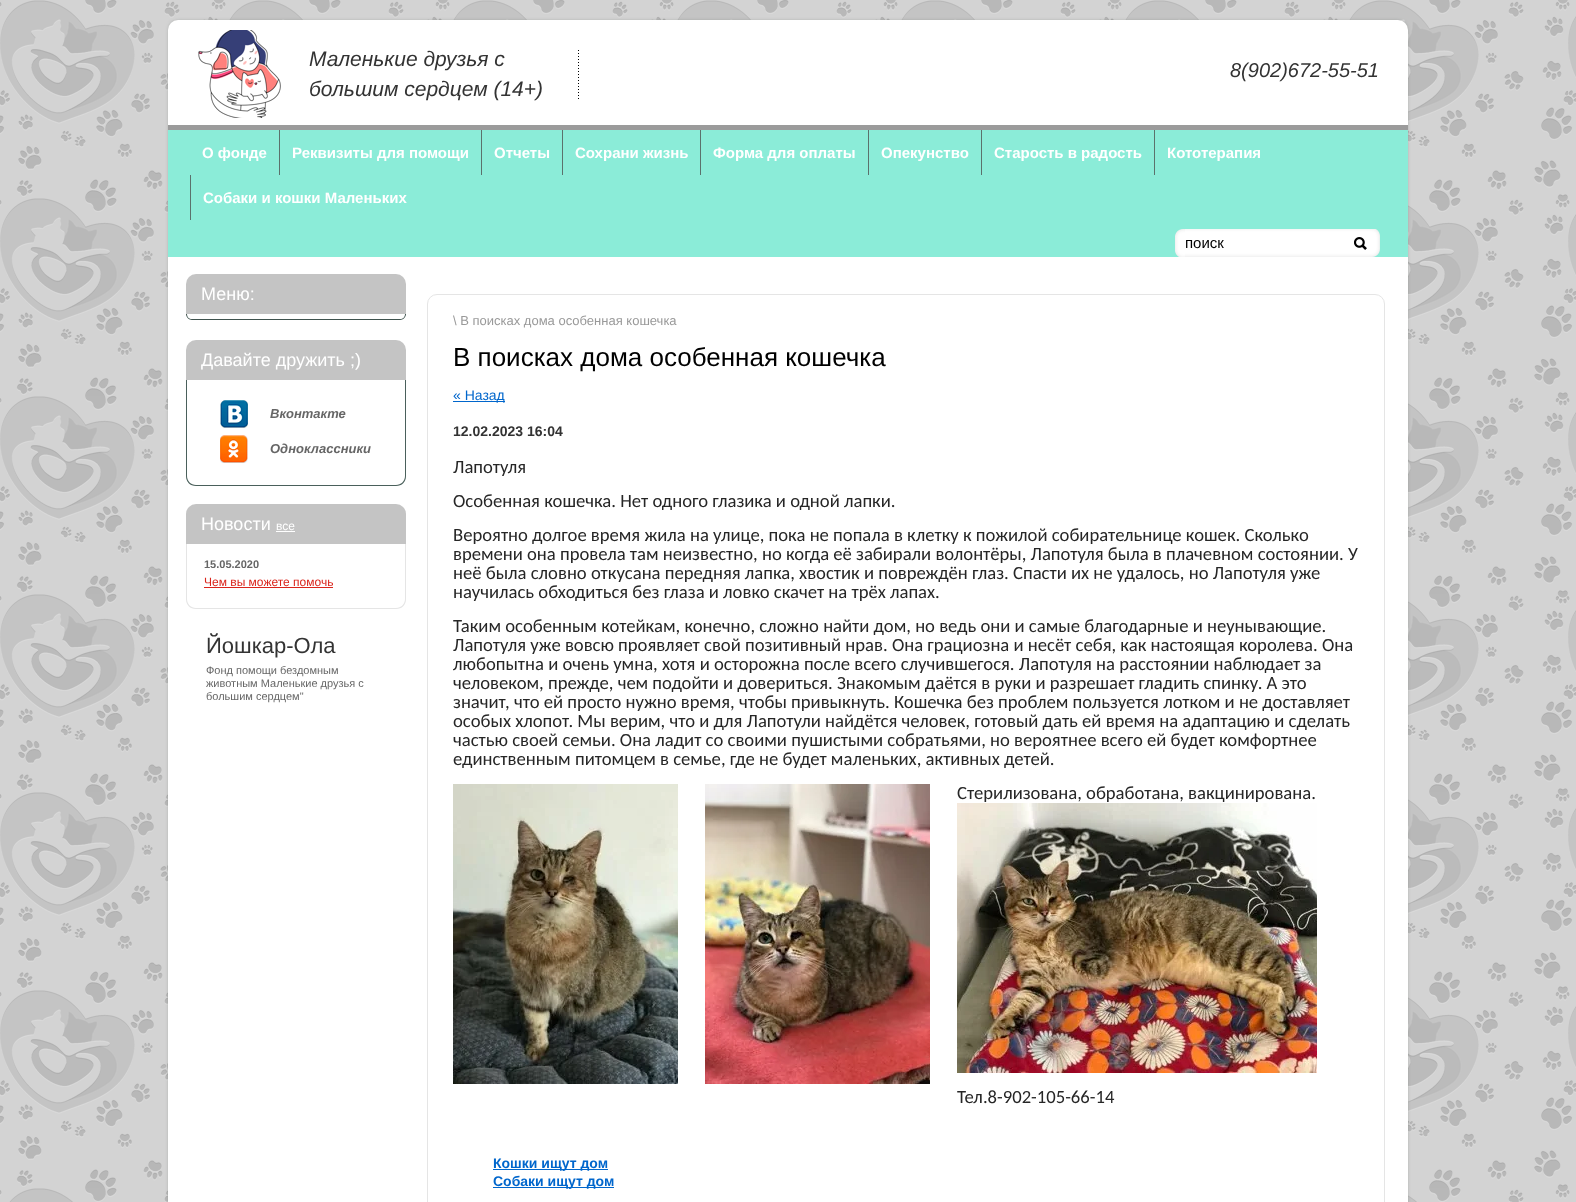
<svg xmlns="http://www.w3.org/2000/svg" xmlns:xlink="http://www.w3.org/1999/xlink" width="1576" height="1202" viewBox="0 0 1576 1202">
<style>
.cls-1{font:italic 21px Liberation Sans;fill:#333333}
.cls-2{font:italic 20px Liberation Sans;fill:#333333}
.cls-3{font:bold 15px Liberation Sans;fill:#ffffff}
.cls-4{font:15px Liberation Sans;fill:#000000}
.cls-5{font:18px Liberation Sans;fill:#ffffff}
.cls-6{font:italic bold 13px Liberation Sans;fill:#666666}
.cls-7{font:12px Liberation Sans;fill:#ffffff}
.cls-8{font:bold 11px Liberation Sans;fill:#666666}
.cls-9{font:12px Liberation Sans;fill:#da251c}
.cls-10{font:22px Liberation Sans;fill:#333333}
.cls-11{font:11px Liberation Sans;fill:#666666}
.cls-12{font:13px Liberation Sans;fill:#999999}
.cls-13{font:26px Liberation Sans;fill:#000000}
.cls-14{font:14px Liberation Sans;fill:#0066cc}
.cls-15{font:bold 14px Liberation Sans;fill:#333333}
.cls-16{font:18.65px Carlito;fill:#262626}
.cls-17{font:bold 14px Liberation Sans;fill:#0066cc}
</style>
<rect width="100%" height="100%" fill="#ffffff"/>
<image xlink:href="image0.png" x="0" y="0" width="1576" height="1202"/>
<rect fill="#2f3b38" filter="blur(2.5px)" x="171" y="23" width="1234" height="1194" rx="7"/>
<rect fill="#ffffff" x="168" y="20" width="1240" height="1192" rx="10"/>
<image xlink:href="image1.png" x="198" y="30" width="83" height="88"/>
<image xlink:href="image2.png" x="578" y="50" width="1" height="49"/>
<rect fill="#8becd8" x="168" y="130" width="1240" height="127"/>
<rect fill="#9b9b9b" x="168" y="125" width="1240" height="5"/>
<rect fill="#5b716c" x="279" y="130" width="1" height="45"/>
<rect fill="#5b716c" x="481" y="130" width="1" height="45"/>
<rect fill="#5b716c" x="562" y="130" width="1" height="45"/>
<rect fill="#5b716c" x="700" y="130" width="1" height="45"/>
<rect fill="#5b716c" x="868" y="130" width="1" height="45"/>
<rect fill="#5b716c" x="981" y="130" width="1" height="45"/>
<rect fill="#5b716c" x="1154" y="130" width="1" height="45"/>
<rect fill="#5b716c" x="190" y="175" width="1" height="45"/>
<image xlink:href="image3.png" x="1175" y="229" width="10" height="28"/>
<image xlink:href="image4.png" x="1185" y="229" width="195" height="28"/>
<image xlink:href="image5.png" x="1354" y="237" width="13" height="13"/>
<image xlink:href="image6.png" x="186" y="274" width="220" height="40"/>
<path fill="#3e524d" fill-rule="evenodd" d="M186 314H406C406 317 403 320 400 320H192C189 320 186 317 186 314ZM187 314H405C405 317 403 319 400 319H192C189 319 187 317 187 314Z"/>
<image xlink:href="image6.png" x="186" y="340" width="220" height="40"/>
<path fill="#4a605b" fill-rule="evenodd" d="M186 380H406V476C406 482 402 486 396 486H196C190 486 186 482 186 476ZM187 380H405V476C405 481 401 485 396 485H196C191 485 187 481 187 476Z"/>
<image xlink:href="image7.png" x="220" y="400" width="28" height="28"/>
<image xlink:href="image8.png" x="220" y="435" width="28" height="28"/>
<image xlink:href="image9.png" x="186" y="504" width="220" height="40"/>
<rect fill="#ffffff" x="276" y="531" width="19" height="1"/>
<path fill="#e5e5e5" fill-rule="evenodd" d="M186 544H406V599C406 605 402 609 396 609H196C190 609 186 605 186 599ZM187 544H405V599C405 604 401 608 396 608H196C191 608 187 604 187 599Z"/>
<rect fill="#da251c" x="204" y="587" width="129" height="1"/>
<rect fill="none" stroke="#e5e5e5" x="427.5" y="294.5" width="957" height="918" rx="9.5"/>
<rect fill="#0066cc" x="453" y="401" width="52" height="1"/>
<image xlink:href="image10.png" x="453" y="784" width="225" height="300"/>
<image xlink:href="image11.png" x="705" y="784" width="225" height="300"/>
<image xlink:href="image12.png" x="957" y="803" width="360" height="270"/>
<rect fill="#0066cc" x="493" y="1169" width="115" height="1"/>
<rect fill="#0066cc" x="493" y="1187" width="121" height="1"/>
<text class="cls-1"><tspan x="309" y="66">Маленькие друзья с</tspan><tspan x="309" y="96">большим сердцем (14+)</tspan></text>
<text class="cls-2" x="1230" y="77">8(902)672-55-51</text>
<text class="cls-3" x="202" y="158">О фонде</text>
<text class="cls-3" x="292" y="158">Реквизиты для помощи</text>
<text class="cls-3" x="494" y="158">Отчеты</text>
<text class="cls-3" x="575" y="158">Сохрани жизнь</text>
<text class="cls-3" x="713" y="158">Форма для оплаты</text>
<text class="cls-3" x="881" y="158">Опекунство</text>
<text class="cls-3" x="994" y="158">Старость в радость</text>
<text class="cls-3" x="1167" y="158">Кототерапия</text>
<text class="cls-3" x="203" y="203">Собаки и кошки Маленьких</text>
<text class="cls-4" x="1185" y="248">поиск</text>
<text class="cls-5" x="201" y="300">Меню:</text>
<text class="cls-5" x="201" y="366">Давайте дружить ;)</text>
<text class="cls-6" x="270" y="418">Вконтакте</text>
<text class="cls-6" x="270" y="453">Одноклассники</text>
<text class="cls-5" x="201" y="530">Новости</text>
<text class="cls-7" x="276" y="530">все</text>
<text class="cls-8" x="204" y="568">15.05.2020</text>
<text class="cls-9" x="204" y="586">Чем вы можете помочь</text>
<text class="cls-10" x="206" y="653">Йошкар-Ола</text>
<text class="cls-11"><tspan x="206" y="674">Фонд помощи бездомным</tspan><tspan x="206" y="687">животным Маленькие друзья с</tspan><tspan x="206" y="700">большим сердцем"</tspan></text>
<text class="cls-12" x="453" y="325">\ В поисках дома особенная кошечка</text>
<text class="cls-13" x="453" y="366">В поисках дома особенная кошечка</text>
<text class="cls-14" x="453" y="400">« Назад</text>
<text class="cls-15" x="453" y="436">12.02.2023 16:04</text>
<text class="cls-16"><tspan x="453" y="473">Лапотуля</tspan><tspan x="453" y="507">Особенная кошечка. Нет одного глазика и одной лапки.</tspan><tspan x="453" y="541">Вероятно долгое время жила на улице, пока не попала в клетку к пожилой собирательнице кошек. Сколько</tspan><tspan x="453" y="560">времени она провела там неизвестно, но когда её забирали волонтёры, Лапотуля была в плачевном состоянии. У</tspan><tspan x="453" y="579">неё была словно откусана передняя лапка, хвостик и повреждён глаз. Спасти их не удалось, но Лапотуля уже</tspan><tspan x="453" y="598">научилась обходиться без глаза и ловко скачет на трёх лапах.</tspan><tspan x="453" y="632">Таким особенным котейкам, конечно, сложно найти дом, но ведь они и самые благодарные и неунывающие.</tspan><tspan x="453" y="651">Лапотуля уже вовсю проявляет свой позитивный нрав. Она грациозна и несёт себя, как настоящая королева. Она</tspan><tspan x="453" y="670">любопытна и очень умна, хотя и осторожна после всего случившегося. Лапотуля на расстоянии наблюдает за</tspan><tspan x="453" y="689">человеком, прежде, чем подойти и довериться. Знакомым даётся в руки и разрешает гладить спинку. А это</tspan><tspan x="453" y="708">значит, что ей просто нужно время, чтобы привыкнуть. Кошечка без проблем пользуется лотком и не доставляет</tspan><tspan x="453" y="727">особых хлопот. Мы верим, что и для Лапотули найдётся человек, готовый дать ей время на адаптацию и сделать</tspan><tspan x="453" y="746">частью своей семьи. Она ладит со своими пушистыми собратьями, но вероятнее всего ей будет комфортнее</tspan><tspan x="453" y="765">единственным питомцем в семье, где не будет маленьких, активных детей.</tspan></text>
<text class="cls-16" x="957" y="799">Стерилизована, обработана, вакцинирована.</text>
<text class="cls-16" x="957" y="1103">Тел.8-902-105-66-14</text>
<text class="cls-17"><tspan x="493" y="1168">Кошки ищут дом</tspan><tspan x="493" y="1186">Собаки ищут дом</tspan></text>
</svg>
